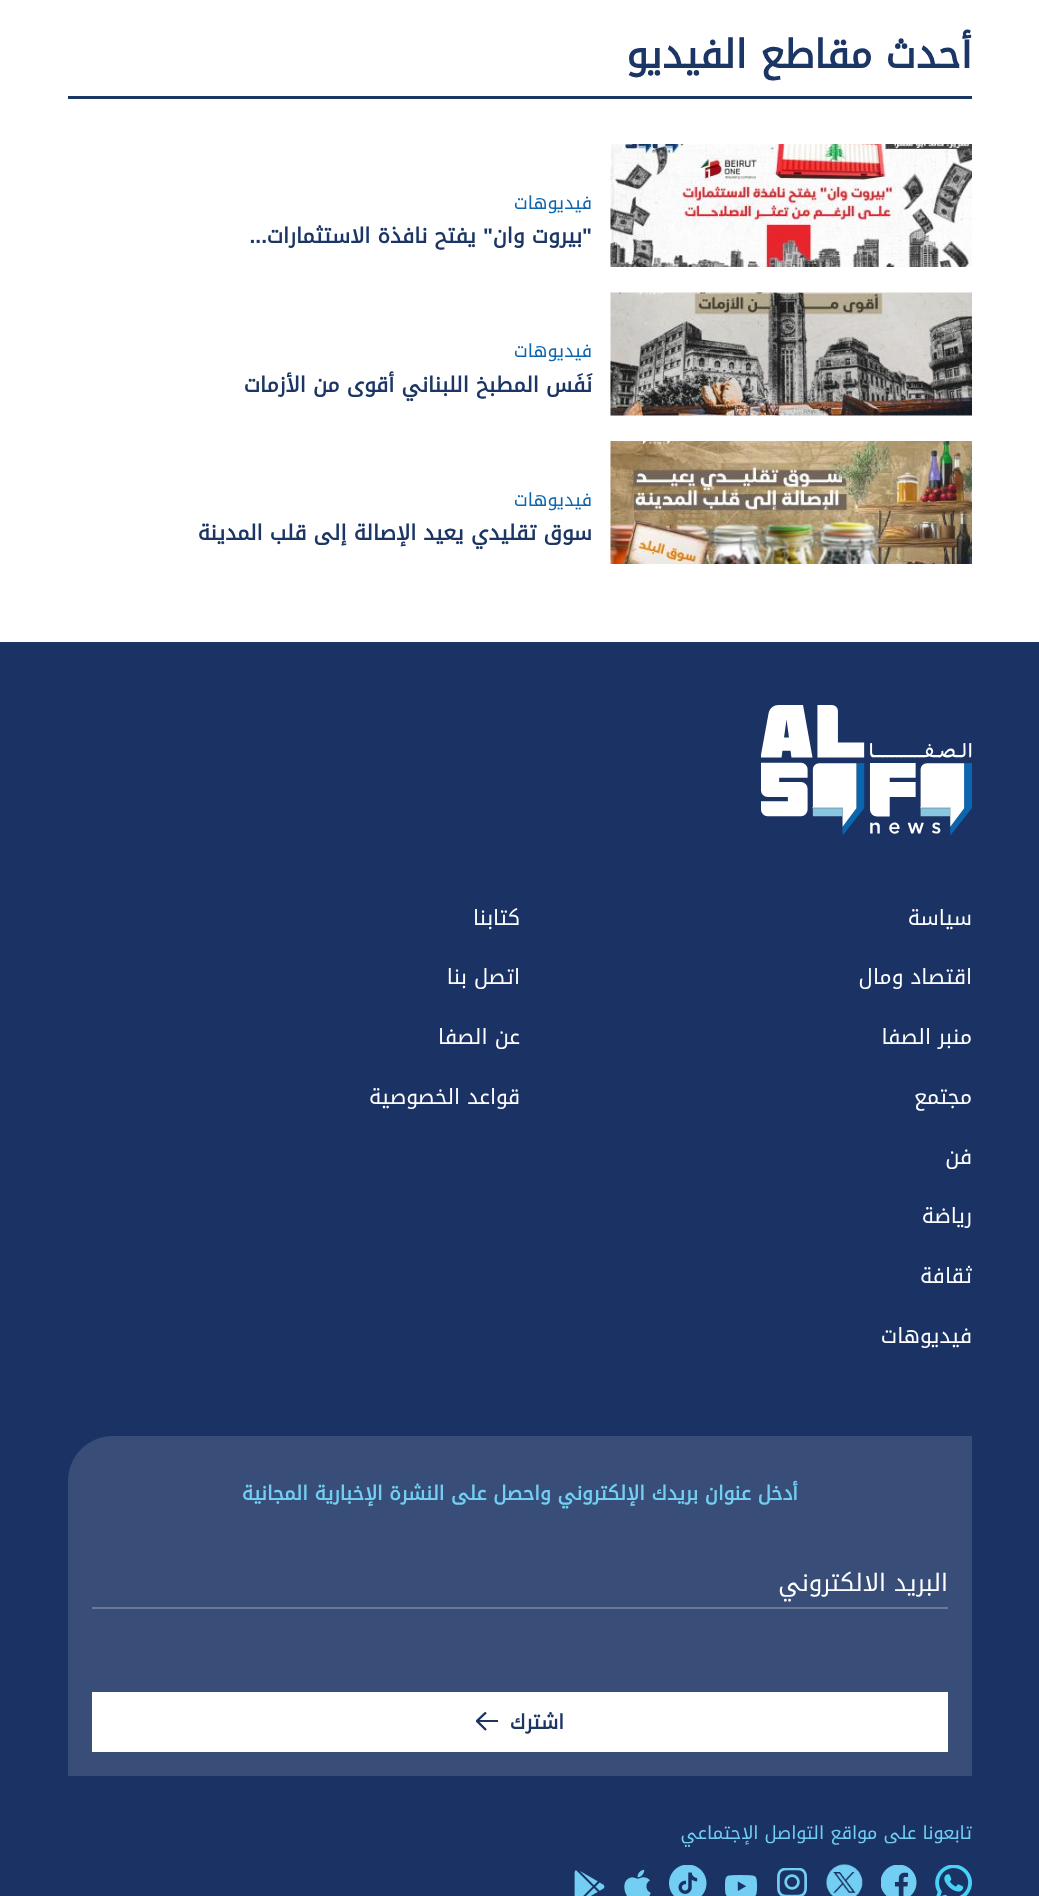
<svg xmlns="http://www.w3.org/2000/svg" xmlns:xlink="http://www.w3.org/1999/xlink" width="1039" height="1896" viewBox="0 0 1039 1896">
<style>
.cls-1{font:bold 39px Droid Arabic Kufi;direction:rtl;fill:#1b3664}
.cls-2{font:18px Droid Arabic Kufi;direction:rtl;fill:#0c65af}
.cls-3{font:bold 21px Liberation Sans;direction:rtl;fill:#1b3664}
.cls-4{font:bold 21px Droid Arabic Kufi;direction:rtl;fill:#1b3664}
.cls-5{font:21px Droid Arabic Kufi;direction:rtl;fill:#ffffff}
.cls-6{font:bold 19.5px Droid Arabic Kufi;direction:rtl;fill:#72cef2}
.cls-7{font:24px Droid Arabic Kufi;direction:rtl;fill:#ffffff}
.cls-8{font:bold 20px Droid Arabic Kufi;direction:rtl;fill:#1b3664}
.cls-9{font:18px Droid Arabic Kufi;direction:rtl;fill:#72cef2}
</style>
<defs>
<clipPath id="clip1"><rect x="476" y="1712" width="22" height="19"/></clipPath>
</defs>
<rect width="100%" height="100%" fill="#ffffff"/>
<rect fill="#1b3664" x="0" y="642" width="1039" height="3"/>
<rect fill="#1b3664" x="68" y="96" width="904" height="3"/>
<image xlink:href="image0.png" x="610" y="144" width="362" height="123"/>
<image xlink:href="image1.png" x="610" y="292" width="362" height="124"/>
<image xlink:href="image2.png" x="610" y="441" width="362" height="123"/>
<rect fill="#1b3364" x="0" y="645" width="1039" height="1251"/>
<image xlink:href="image3.png" x="761" y="705" width="211" height="130"/>
<path fill="#384d77" d="M113 1436H972V1776H68V1481C68 1456 88 1436 113 1436Z"/>
<rect fill="#6b7997" x="92" y="1607" width="856" height="2"/>
<rect fill="#ffffff" x="92" y="1692" width="856" height="60"/>
<rect fill="#1b3664" x="477" y="1720" width="21" height="2"/>
<g clip-path="url(#clip1)">
<path fill="none" stroke="#1b3664" stroke-width="2.4" d="M486 1712.5L477 1721L486 1730"/>
</g>
<image xlink:href="image4.png" x="935" y="1865" width="37" height="31"/>
<image xlink:href="image5.png" x="881" y="1865" width="36" height="31"/>
<image xlink:href="image6.png" x="826" y="1864" width="37" height="32"/>
<image xlink:href="image7.png" x="777" y="1868" width="30" height="28"/>
<image xlink:href="image8.png" x="725" y="1875" width="33" height="21"/>
<image xlink:href="image9.png" x="669" y="1865" width="38" height="31"/>
<image xlink:href="image10.png" x="624" y="1869" width="27" height="27"/>
<image xlink:href="image11.png" x="574" y="1870" width="31" height="26"/>
<text class="cls-1" x="972" y="68">أحدث مقاطع الفيديو</text>
<text class="cls-2" x="592" y="209">فيديوهات</text>
<text class="cls-3" x="592" y="243">"</text>
<text class="cls-4" x="582" y="243">بيروت وان</text>
<text class="cls-3" x="493" y="243">"</text>
<text class="cls-4" x="476" y="243">يفتح نافذة الاستثمارات</text>
<text class="cls-3" x="267" y="243">...</text>
<text class="cls-2" x="592" y="357">فيديوهات</text>
<text class="cls-4" x="592" y="392">نَفَس المطبخ اللبناني أقوى من الأزمات</text>
<text class="cls-2" x="592" y="506">فيديوهات</text>
<text class="cls-4" x="592" y="540">سوق تقليدي يعيد الإصالة إلى قلب المدينة</text>
<text class="cls-5" x="972" y="925">سياسة</text>
<text class="cls-5" x="972" y="984">اقتصاد ومال</text>
<text class="cls-5" x="972" y="1044">منبر الصفا</text>
<text class="cls-5" x="972" y="1104">مجتمع</text>
<text class="cls-5" x="972" y="1164">فن</text>
<text class="cls-5" x="972" y="1223">رياضة</text>
<text class="cls-5" x="972" y="1283">ثقافة</text>
<text class="cls-5" x="972" y="1343">فيديوهات</text>
<text class="cls-5" x="520" y="925">كتابنا</text>
<text class="cls-5" x="520" y="984">اتصل بنا</text>
<text class="cls-5" x="520" y="1044">عن الصفا</text>
<text class="cls-5" x="520" y="1104">قواعد الخصوصية</text>
<text class="cls-6" x="798" y="1500">أدخل عنوان بريدك الإلكتروني واحصل على النشرة الإخبارية المجانية</text>
<text class="cls-7" x="948" y="1591">البريد الالكتروني</text>
<text class="cls-8" x="564" y="1729">اشترك</text>
<text class="cls-9" x="972" y="1839">تابعونا على مواقع التواصل الإجتماعي</text>
</svg>
